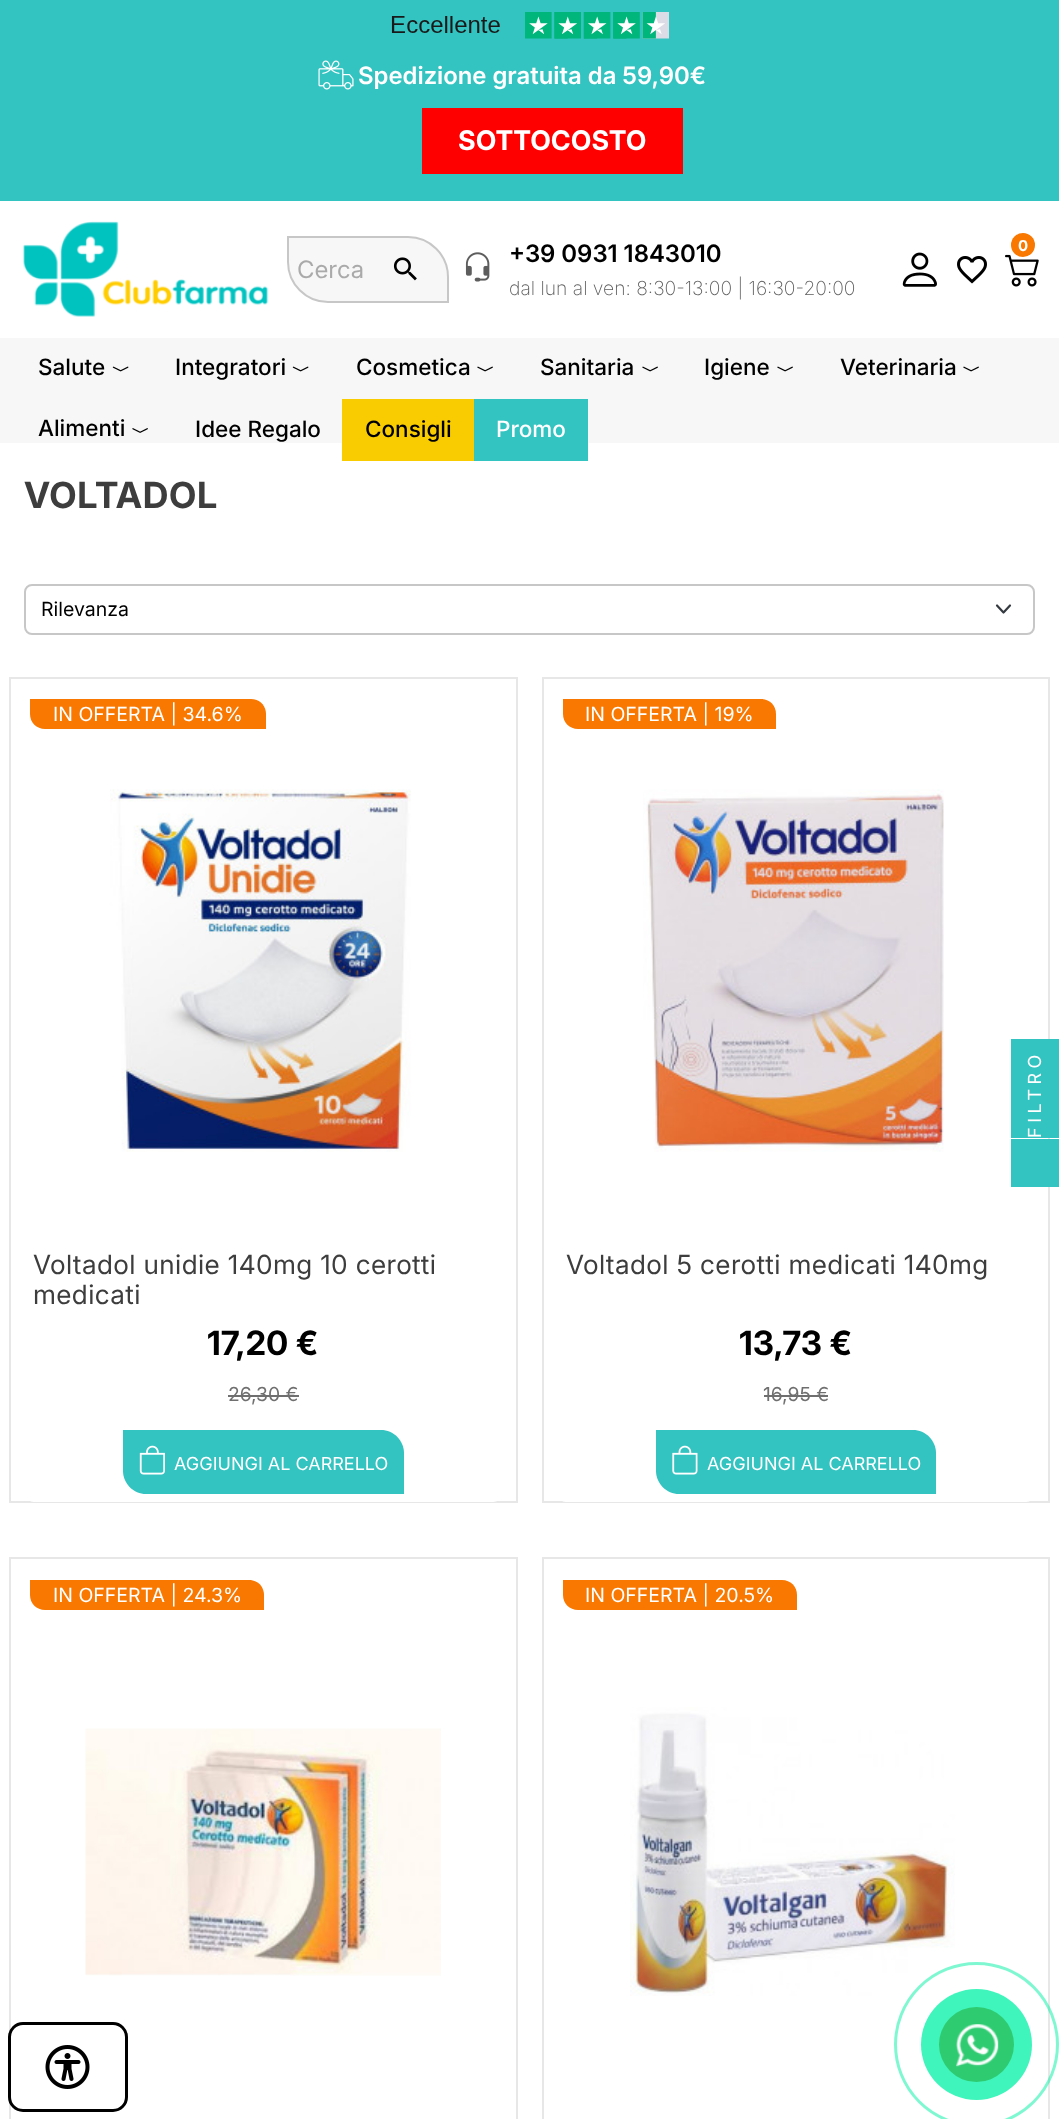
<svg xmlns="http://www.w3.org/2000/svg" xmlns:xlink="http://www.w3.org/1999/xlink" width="1059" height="2119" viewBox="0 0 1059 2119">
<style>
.cls-1{font:600 24px Inter;fill:#ffffff}
.cls-2{font:bold 27px Inter;fill:#ffffff}
.cls-3{font:24px 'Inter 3';fill:#aaaaaa}
.cls-4{font:600 24px Inter;fill:#000000}
.cls-5{font:200 19.25px Inter;fill:#5d5d5d}
.cls-6{font:bold 15px 'Inter 3';fill:#ffffff}
.cls-7{font:500 22.5px Inter;fill:#000000}
.cls-8{font:500 22.5px Inter;fill:#ffffff}
.cls-9{font:bold 36px 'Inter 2';letter-spacing:0.75px;fill:#3d3d3d}
.cls-10{font:19.5px Inter;fill:#000000}
.cls-11{font:19.5px Inter;fill:#ffffff}
.cls-12{font:26.4px 'Inter 2';letter-spacing:0.4px;fill:#3d3d3d}
.cls-13{font:bold 33.5px 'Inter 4';fill:#000000}
.cls-14{font:19.25px Inter;fill:#6f6f6f}
.cls-15{font:18px Inter;fill:#ffffff}
.cls-16{font:18px Inter;letter-spacing:4.5px;fill:#ffffff}
</style>
<rect width="100%" height="100%" fill="#ffffff"/>
<rect fill="#33c3c0" x="0" y="0" width="1059" height="201"/>
<image xlink:href="image0.png" x="391" y="12" width="278" height="27"/>
<image xlink:href="image1.png" x="318" y="60" width="36" height="30"/>
<rect fill="#ff0000" x="422" y="108" width="261" height="66"/>
<image xlink:href="image2.png" x="22" y="221" width="247" height="96"/>
<path fill="#f7f7f7" stroke="#c7c7c7" stroke-width="2" d="M288 237H408C430 237 448 255 448 277V302H328C306 302 288 284 288 262Z"/>
<image xlink:href="image3.png" x="393" y="257" width="24" height="24"/>
<image xlink:href="image4.png" x="465" y="252" width="25" height="30"/>
<image xlink:href="image5.png" x="902" y="252" width="35" height="35"/>
<image xlink:href="image6.png" x="957" y="256" width="30" height="28"/>
<image xlink:href="image7.png" x="1005" y="254" width="34" height="33"/>
<circle fill="#f87801" cx="1023" cy="245" r="12"/>
<rect fill="#f7f7f7" x="0" y="338" width="1059" height="105"/>
<image xlink:href="image8.png" x="112" y="366" width="17" height="6"/>
<image xlink:href="image8.png" x="292" y="366" width="17" height="6"/>
<image xlink:href="image9.png" x="477" y="366" width="16" height="6"/>
<image xlink:href="image9.png" x="642" y="366" width="16" height="6"/>
<image xlink:href="image9.png" x="777" y="366" width="16" height="6"/>
<image xlink:href="image9.png" x="963" y="366" width="16" height="6"/>
<image xlink:href="image10.png" x="132" y="428" width="16" height="5"/>
<rect fill="#f9cc01" x="342" y="399" width="132" height="62"/>
<rect fill="#33c3c0" x="474" y="399" width="114" height="62"/>
<path fill="none" stroke="#343a40" stroke-width="2.2" stroke-linecap="round" stroke-linejoin="round" d="M997 605.5L1003.5 612.5L1010 605.5"/>
<rect fill="none" stroke="#c7c7c7" stroke-width="2" x="25" y="585" width="1009" height="49" rx="7"/>
<rect fill="none" stroke="#e7e7e7" stroke-width="2" x="10" y="678" width="507" height="824"/>
<rect fill="#ffffff" x="26" y="693" width="475" height="809" rx="8"/>
<path fill="#f87801" d="M30 699H251C259.5 699 266 705.5 266 714V729H45C36.5 729 30 722.5 30 714Z"/>
<image xlink:href="image11.png" x="110" y="789" width="301" height="363"/>
<rect fill="#6f6f6f" x="228" y="1395" width="71" height="2"/>
<path fill="#33c3c0" d="M123 1430H381C393.5 1430 404 1440.5 404 1453V1494H146C133.5 1494 123 1483.5 123 1471Z"/>
<image xlink:href="image12.png" x="139" y="1445" width="26" height="30"/>
<rect fill="none" stroke="#e7e7e7" stroke-width="2" x="543" y="678" width="506" height="824"/>
<rect fill="#ffffff" x="558" y="693" width="476" height="809" rx="8"/>
<path fill="#f87801" d="M563 699H761C769.5 699 776 705.5 776 714V729H578C569.5 729 563 722.5 563 714Z"/>
<image xlink:href="image13.png" x="643" y="789" width="301" height="363"/>
<rect fill="#6f6f6f" x="764" y="1395" width="64" height="2"/>
<path fill="#33c3c0" d="M656 1430H913C925.5 1430 936 1440.5 936 1453V1494H679C666.5 1494 656 1483.5 656 1471Z"/>
<image xlink:href="image14.png" x="672" y="1445" width="26" height="30"/>
<rect fill="none" stroke="#e7e7e7" stroke-width="2" x="10" y="1558" width="507" height="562"/>
<path fill="#f87801" d="M30 1580H249C257.5 1580 264 1586.5 264 1595V1610H45C36.5 1610 30 1603.5 30 1595Z"/>
<image xlink:href="image15.png" x="85" y="1728" width="356" height="248"/>
<rect fill="none" stroke="#e7e7e7" stroke-width="2" x="543" y="1558" width="506" height="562"/>
<path fill="#f87801" d="M563 1580H782C790.5 1580 797 1586.5 797 1595V1610H578C569.5 1610 563 1603.5 563 1595Z"/>
<image xlink:href="image16.png" x="630" y="1707" width="325" height="289"/>
<rect fill="#33c3c0" x="1011" y="1139" width="48" height="48"/>
<rect fill="#33c3c0" x="1011" y="1039" width="48" height="99"/>
<rect fill="#ffffff" stroke="#000000" stroke-width="3" x="9.5" y="2023.5" width="117" height="87" rx="13.5"/>
<image xlink:href="image17.png" x="45" y="2045" width="45" height="44"/>
<circle fill="none" stroke="#00f2a4" stroke-opacity="0.5" stroke-width="3" cx="976.5" cy="2044.5" r="81"/>
<circle fill="#40f5bb" cx="976.5" cy="2044.5" r="55.5"/>
<circle fill="#2ecb71" cx="976.5" cy="2044.5" r="37.5"/>
<image xlink:href="image18.png" x="956" y="2024" width="43" height="43"/>
<text class="cls-1" x="358" y="84">Spedizione gratuita da 59,90€</text>
<text class="cls-2" x="458" y="150">SOTTOCOSTO</text>
<text class="cls-3" x="297" y="278">Cerca</text>
<text class="cls-4" x="509" y="262">+39 0931 1843010</text>
<text class="cls-5" x="509" y="295">dal lun al ven: 8:30-13:00 | 16:30-20:00</text>
<text class="cls-6" x="1018" y="251">0</text>
<text class="cls-7" x="38" y="375">Salute</text>
<text class="cls-7" x="175" y="375">Integratori</text>
<text class="cls-7" x="356" y="375">Cosmetica</text>
<text class="cls-7" x="540" y="375">Sanitaria</text>
<text class="cls-7" x="704" y="375">Igiene</text>
<text class="cls-7" x="840" y="375">Veterinaria</text>
<text class="cls-7" x="38" y="436">Alimenti</text>
<text class="cls-7" x="195" y="437">Idee Regalo</text>
<text class="cls-7" x="365" y="437">Consigli</text>
<text class="cls-8" x="496" y="437">Promo</text>
<text class="cls-9" x="24" y="508">VOLTADOL</text>
<text class="cls-10" x="41" y="616">Rilevanza</text>
<text class="cls-11" x="53" y="721">IN OFFERTA | 34.6%</text>
<text class="cls-12"><tspan x="33" y="1274">Voltadol unidie 140mg 10 cerotti</tspan><tspan x="33" y="1304">medicati</tspan></text>
<text class="cls-13" x="207" y="1355">17,20 €</text>
<text class="cls-14" x="228" y="1401">26,30 €</text>
<text class="cls-15" x="174" y="1470">AGGIUNGI AL CARRELLO</text>
<text class="cls-11" x="585" y="721">IN OFFERTA | 19%</text>
<text class="cls-12" x="566" y="1274">Voltadol 5 cerotti medicati 140mg</text>
<text class="cls-13" x="739" y="1355">13,73 €</text>
<text class="cls-14" x="763" y="1401">16,95 €</text>
<text class="cls-15" x="707" y="1470">AGGIUNGI AL CARRELLO</text>
<text class="cls-11" x="53" y="1602">IN OFFERTA | 24.3%</text>
<text class="cls-11" x="585" y="1602">IN OFFERTA | 20.5%</text>
<text class="cls-16" x="1041" y="1138" transform="rotate(-90 1041 1138)">FILTRO</text>
</svg>
